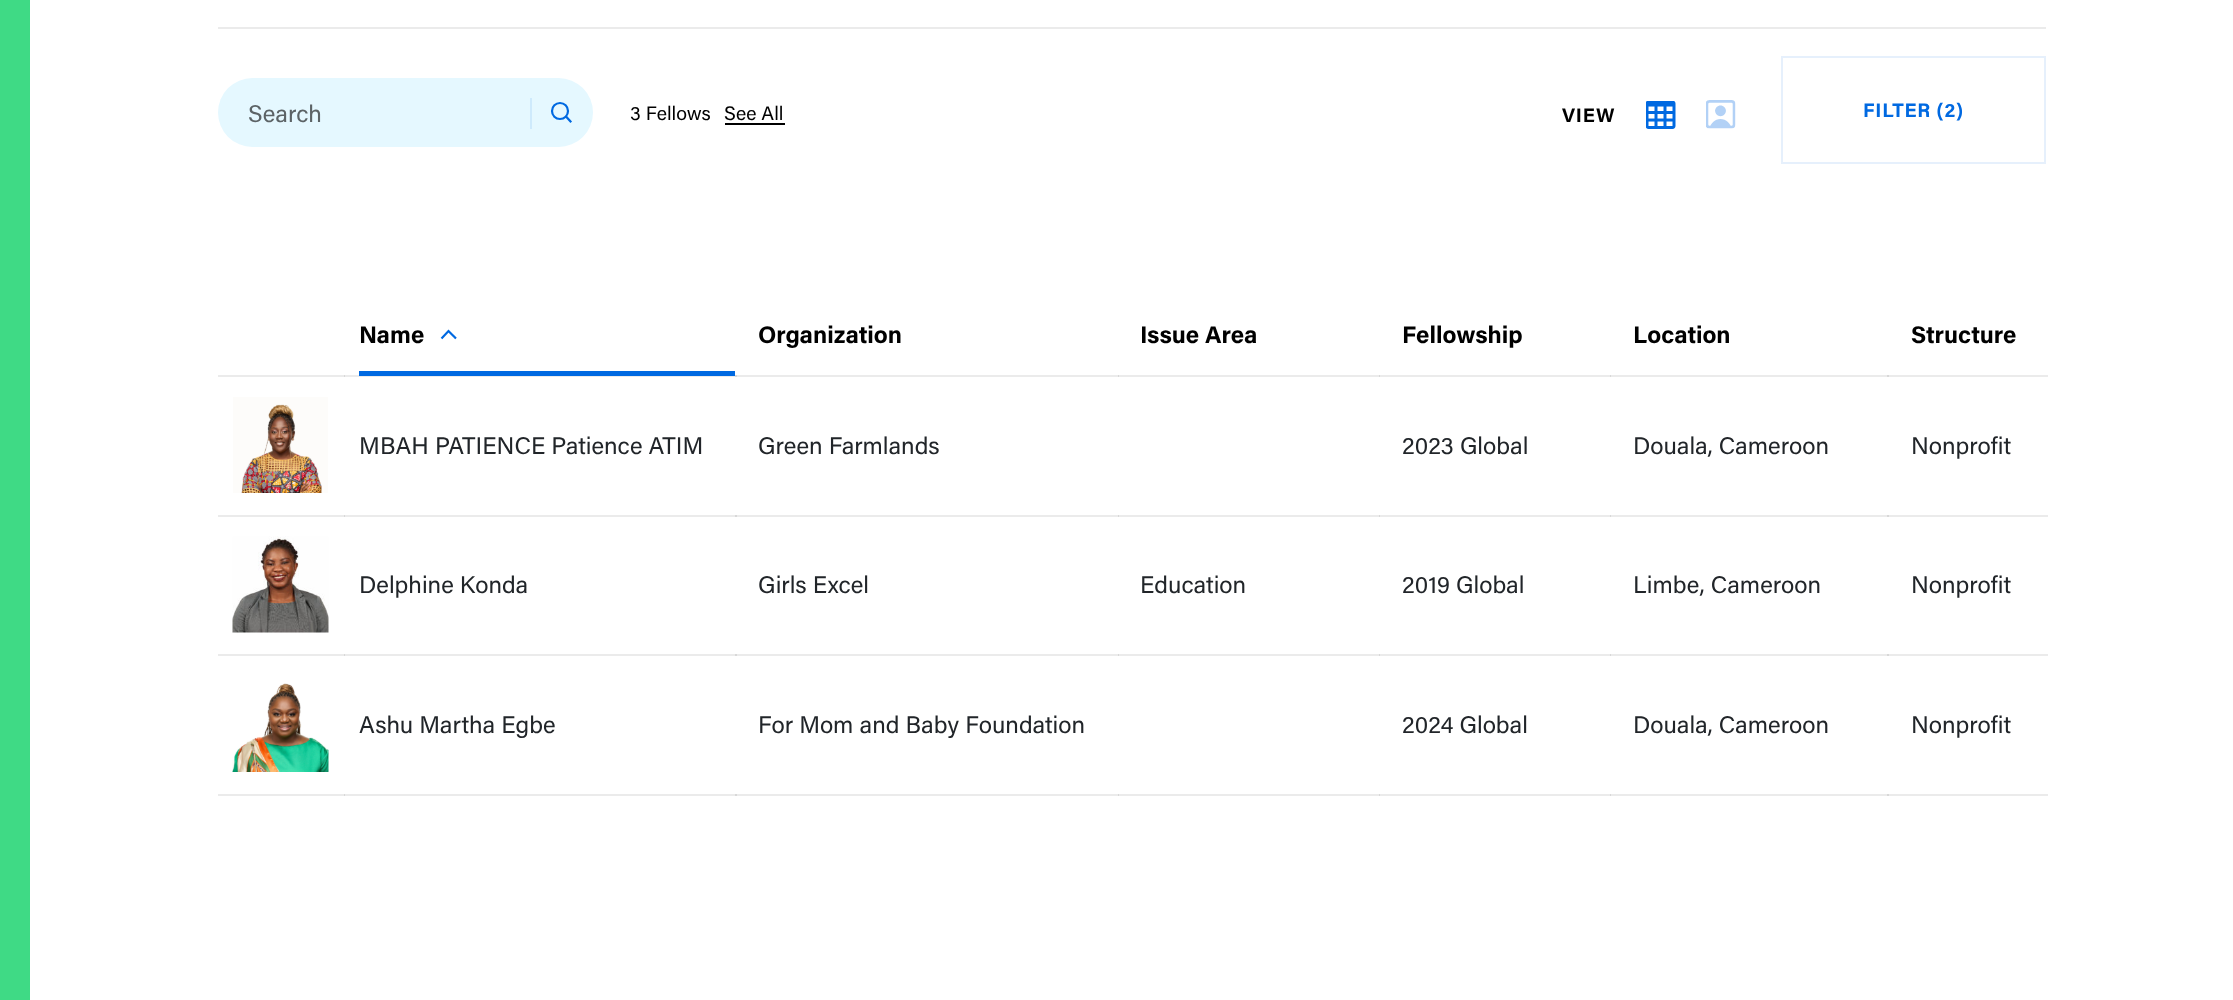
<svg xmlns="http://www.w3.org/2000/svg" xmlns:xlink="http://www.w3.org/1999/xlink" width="2233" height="1000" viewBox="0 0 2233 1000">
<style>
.cls-1{font:24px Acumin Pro;fill:#5c6366}
.cls-2{font:19.5px Acumin Pro;fill:#000000}
.cls-3{font:bold 19.5px Acumin Pro;letter-spacing:0.75px;fill:#000000}
.cls-4{font:bold 19.5px Acumin Pro;letter-spacing:0.75px;fill:#0069e1}
.cls-5{font:bold 24px Acumin Pro;fill:#000000}
.cls-6{font:24px Acumin Pro;fill:#212529}
</style>
<rect width="100%" height="100%" fill="#ffffff"/>
<rect fill="#ebebeb" x="218" y="375" width="1830" height="2"/>
<rect fill="#d8d8d8" x="344" y="375" width="1" height="2"/>
<rect fill="#d8d8d8" x="735" y="375" width="2" height="2"/>
<rect fill="#d8d8d8" x="1118" y="375" width="1" height="2"/>
<rect fill="#d8d8d8" x="1379" y="375" width="1" height="2"/>
<rect fill="#d8d8d8" x="1610" y="375" width="1" height="2"/>
<rect fill="#ebebeb" x="218" y="515" width="1830" height="2"/>
<rect fill="#d8d8d8" x="344" y="515" width="1" height="2"/>
<rect fill="#d8d8d8" x="735" y="515" width="2" height="2"/>
<rect fill="#d8d8d8" x="1118" y="515" width="1" height="2"/>
<rect fill="#d8d8d8" x="1379" y="515" width="1" height="2"/>
<rect fill="#d8d8d8" x="1610" y="515" width="1" height="2"/>
<rect fill="#ebebeb" x="218" y="654" width="1830" height="2"/>
<rect fill="#d8d8d8" x="344" y="654" width="1" height="2"/>
<rect fill="#d8d8d8" x="735" y="654" width="2" height="2"/>
<rect fill="#d8d8d8" x="1118" y="654" width="1" height="2"/>
<rect fill="#d8d8d8" x="1379" y="654" width="1" height="2"/>
<rect fill="#d8d8d8" x="1610" y="654" width="1" height="2"/>
<rect fill="#ebebeb" x="218" y="794" width="1830" height="2"/>
<rect fill="#d8d8d8" x="344" y="794" width="1" height="2"/>
<rect fill="#d8d8d8" x="735" y="794" width="2" height="2"/>
<rect fill="#d8d8d8" x="1118" y="794" width="1" height="2"/>
<rect fill="#d8d8d8" x="1379" y="794" width="1" height="2"/>
<rect fill="#d8d8d8" x="1610" y="794" width="1" height="2"/>
<rect fill="#3fda85" x="0" y="0" width="30" height="1000"/>
<rect fill="#ebebeb" x="218" y="27" width="1828" height="2"/>
<rect fill="#e5f8ff" x="218" y="78" width="375" height="69" rx="34.5"/>
<rect fill="#ceeafc" x="530" y="98" width="2" height="31"/>
<circle fill="none" stroke="#0069e1" stroke-width="2.2" cx="560" cy="111" r="8"/>
<path fill="none" stroke="#0069e1" stroke-width="2.2" stroke-linecap="square" d="M566.5 117L570.5 121.5"/>
<rect fill="#000000" x="725" y="123" width="60" height="2"/>
<image xlink:href="image0.png" x="1646" y="101" width="30" height="28"/>
<image xlink:href="image1.png" x="1706" y="100" width="30" height="29"/>
<rect fill="none" stroke="#e6f0fc" stroke-width="2" x="1782" y="57" width="263" height="106"/>
<path fill="none" stroke="#0069e1" stroke-width="2.2" d="M456 338.5L448.5 331L441.5 338.5"/>
<rect fill="#0069e1" x="359" y="371" width="376" height="5"/>
<rect fill="#d8d8d8" x="1887" y="375" width="2" height="2"/>
<image xlink:href="image2.png" x="233" y="397" width="95" height="96"/>
<rect fill="#d8d8d8" x="1887" y="515" width="2" height="2"/>
<image xlink:href="image3.png" x="232" y="536" width="97" height="97"/>
<rect fill="#d8d8d8" x="1887" y="654" width="2" height="2"/>
<image xlink:href="image4.png" x="232" y="683" width="97" height="89"/>
<rect fill="#d8d8d8" x="1887" y="794" width="2" height="2"/>
<text class="cls-1" x="248" y="122">Search</text>
<text class="cls-2" x="630" y="120">3 Fellows</text>
<text class="cls-2" x="724" y="120">See All</text>
<text class="cls-3" x="1562" y="122">VIEW</text>
<text class="cls-4" x="1863" y="117">FILTER (2)</text>
<text class="cls-5" x="359" y="343">Name</text>
<text class="cls-5" x="758" y="343">Organization</text>
<text class="cls-5" x="1140" y="343">Issue Area</text>
<text class="cls-5" x="1402" y="343">Fellowship</text>
<text class="cls-5" x="1633" y="343">Location</text>
<text class="cls-5" x="1911" y="343">Structure</text>
<text class="cls-6" x="359" y="454">MBAH PATIENCE Patience ATIM</text>
<text class="cls-6" x="758" y="454">Green Farmlands</text>
<text class="cls-6" x="1402" y="454">2023 Global</text>
<text class="cls-6" x="1633" y="454">Douala, Cameroon</text>
<text class="cls-6" x="1911" y="454">Nonprofit</text>
<text class="cls-6" x="359" y="593">Delphine Konda</text>
<text class="cls-6" x="758" y="593">Girls Excel</text>
<text class="cls-6" x="1140" y="593">Education</text>
<text class="cls-6" x="1402" y="593">2019 Global</text>
<text class="cls-6" x="1633" y="593">Limbe, Cameroon</text>
<text class="cls-6" x="1911" y="593">Nonprofit</text>
<text class="cls-6" x="359" y="733">Ashu Martha Egbe</text>
<text class="cls-6" x="758" y="733">For Mom and Baby Foundation</text>
<text class="cls-6" x="1402" y="733">2024 Global</text>
<text class="cls-6" x="1633" y="733">Douala, Cameroon</text>
<text class="cls-6" x="1911" y="733">Nonprofit</text>
</svg>
